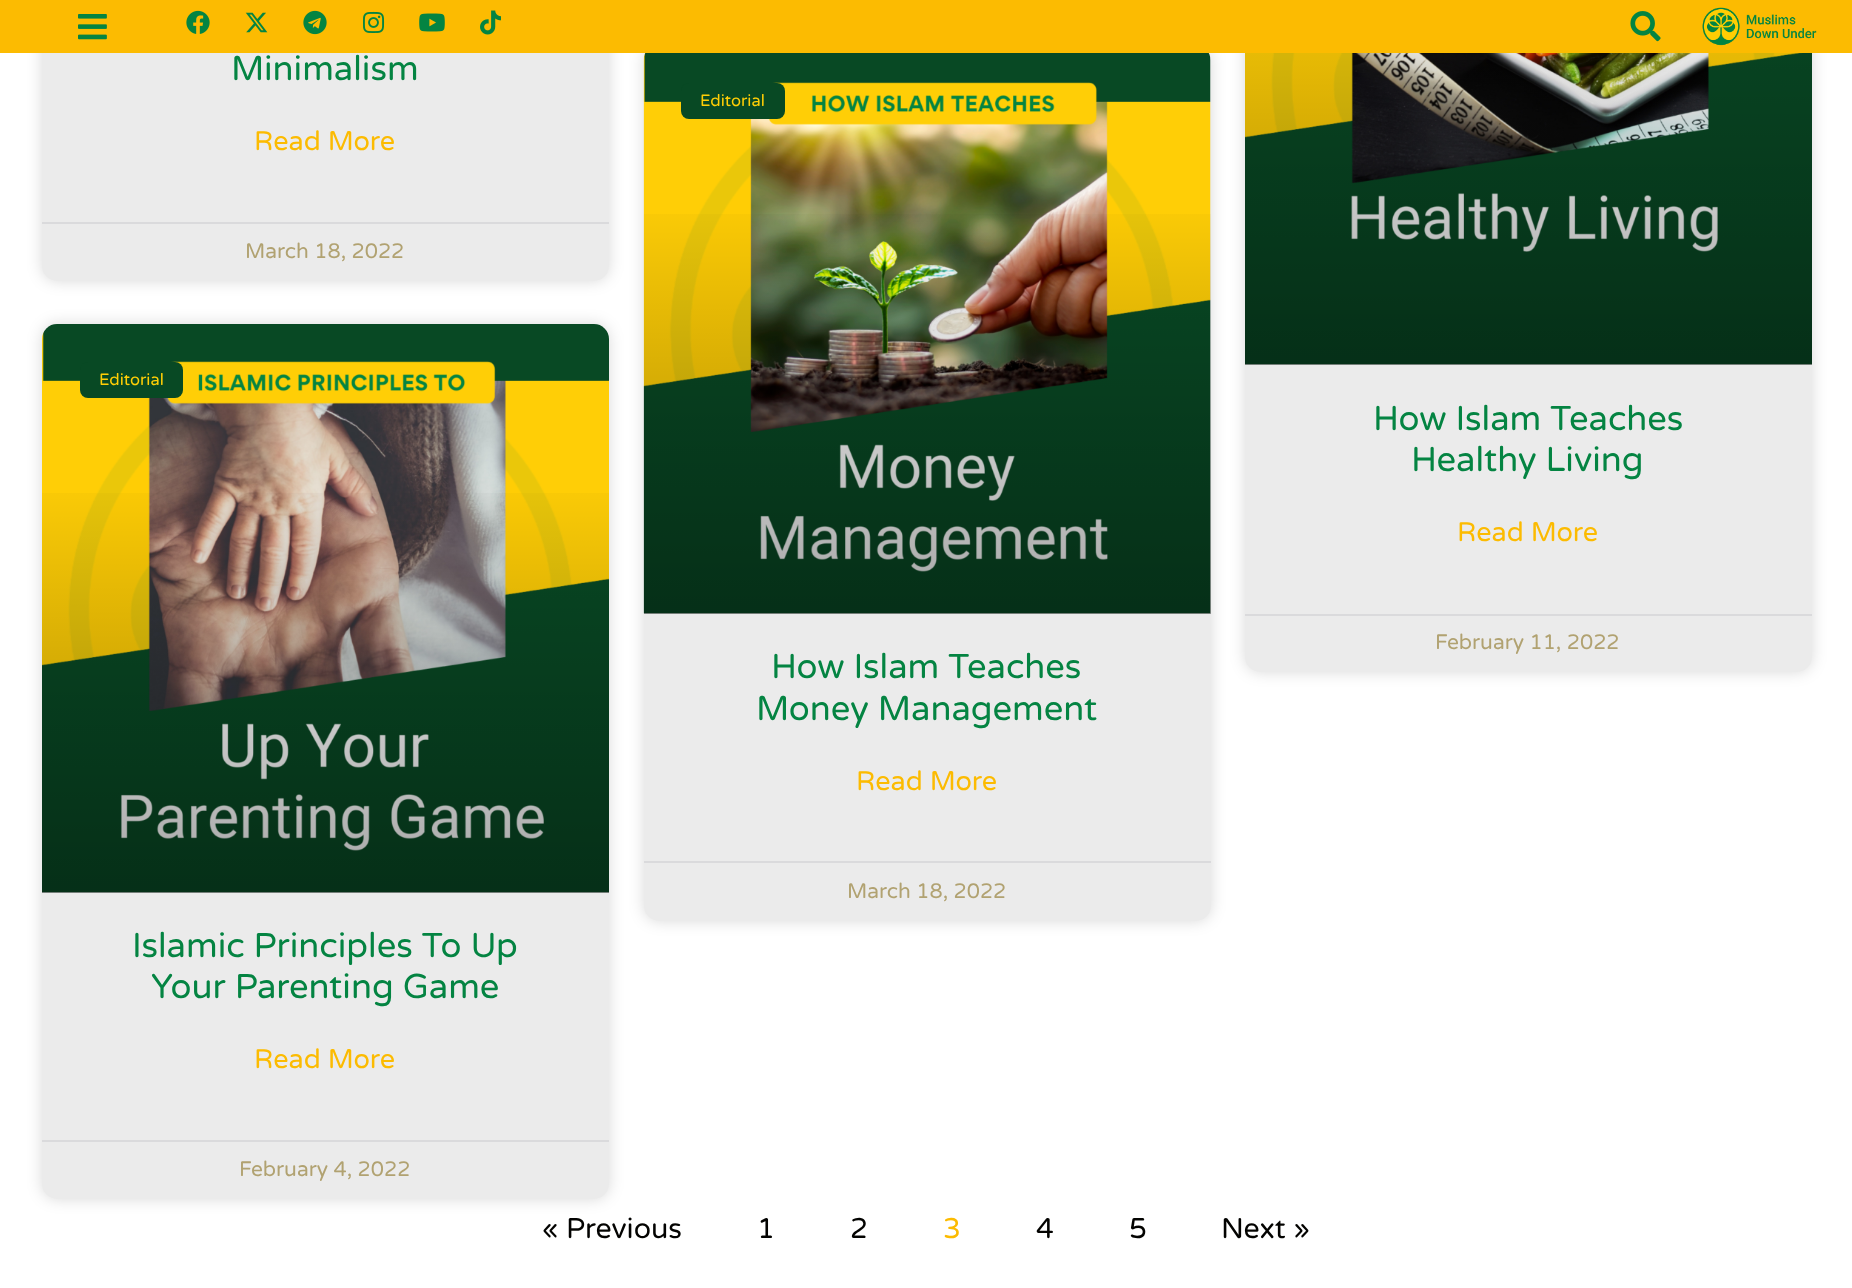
<svg xmlns="http://www.w3.org/2000/svg" xmlns:xlink="http://www.w3.org/1999/xlink" width="1852" height="1288" viewBox="0 0 1852 1288">
<style>
.cls-1{font:34.5px Varela Round;fill:#048442}
.cls-2{font:27px Varela Round;fill:#fcbb01}
.cls-3{font:21px Varela Round;fill:#b1a271}
.cls-4{font:16.5px Varela Round;fill:#ffce06}
.cls-5{font:28.5px Varela Round;fill:#030301}
.cls-6{font:28.5px Varela Round;fill:#fcbb01}
</style>
<defs>
<linearGradient id="g1" gradientUnits="userSpaceOnUse" x1="927" y1="614" x2="927" y2="45"><stop offset="0" stop-color="#000000" stop-opacity="0.35"/><stop offset="0.75" stop-color="#000000" stop-opacity="0"/></linearGradient>
<linearGradient id="g2" gradientUnits="userSpaceOnUse" x1="326" y1="893" x2="326" y2="324"><stop offset="0" stop-color="#000000" stop-opacity="0.35"/><stop offset="0.75" stop-color="#000000" stop-opacity="0"/></linearGradient>
<linearGradient id="g3" gradientUnits="userSpaceOnUse" x1="1529" y1="365" x2="1529" y2="-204"><stop offset="0" stop-color="#000000" stop-opacity="0.35"/><stop offset="0.75" stop-color="#000000" stop-opacity="0"/></linearGradient>
</defs>
<rect width="100%" height="100%" fill="#ffffff"/>
<rect fill="#000000" fill-opacity="0.15" filter="blur(7.5px)" x="42" y="-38" width="567" height="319" rx="15"/>
<rect fill="#ebebeb" x="42" y="-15" width="567" height="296" rx="15"/>
<rect fill="#000000" fill-opacity="0.15" filter="blur(7.5px)" x="644" y="45" width="567" height="876" rx="15"/>
<rect fill="#ebebeb" x="644" y="45" width="567" height="876" rx="15"/>
<rect fill="#000000" fill-opacity="0.15" filter="blur(7.5px)" x="1245" y="-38" width="567" height="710" rx="15"/>
<rect fill="#ebebeb" x="1245" y="-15" width="567" height="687" rx="15"/>
<rect fill="#fcbb01" x="0" y="0" width="1852" height="53"/>
<image xlink:href="image0.png" x="78" y="14" width="29" height="26"/>
<image xlink:href="image1.png" x="186" y="10" width="24" height="24"/>
<image xlink:href="image2.png" x="245" y="12" width="23" height="21"/>
<image xlink:href="image3.png" x="303" y="10" width="24" height="25"/>
<image xlink:href="image4.png" x="363" y="11" width="22" height="22"/>
<image xlink:href="image5.png" x="419" y="13" width="26" height="19"/>
<image xlink:href="image6.png" x="480" y="10" width="21" height="25"/>
<image xlink:href="image7.png" x="1630" y="11" width="31" height="31"/>
<image xlink:href="image8.png" x="1702" y="7" width="115" height="39"/>
<rect fill="#dadadc" x="42" y="222" width="567" height="2"/>
<image xlink:href="image9.png" x="643" y="53" width="568" height="561"/>
<rect fill="url(#g1)" x="644" y="214" width="567" height="400"/>
<rect fill="#084924" x="681" y="83" width="104" height="36" rx="8"/>
<rect fill="#dadadc" x="644" y="861" width="567" height="2"/>
<rect fill="#000000" fill-opacity="0.15" filter="blur(7.5px)" x="42" y="324" width="567" height="875" rx="15"/>
<rect fill="#ebebeb" x="42" y="324" width="567" height="875" rx="15"/>
<image xlink:href="image10.png" x="42" y="324" width="567" height="569"/>
<rect fill="url(#g2)" x="42" y="493" width="567" height="400"/>
<rect fill="#084924" x="80" y="362" width="103" height="36" rx="8"/>
<rect fill="#dadadc" x="42" y="1140" width="567" height="2"/>
<image xlink:href="image11.png" x="1245" y="53" width="567" height="312"/>
<rect fill="url(#g3)" x="1245" y="53" width="567" height="312"/>
<rect fill="#dadadc" x="1245" y="614" width="567" height="2"/>
<text class="cls-1" x="231" y="80">Minimalism</text>
<text class="cls-2" x="254" y="150">Read More</text>
<text class="cls-3" x="245" y="258">March 18, 2022</text>
<text class="cls-4" x="700" y="106">Editorial</text>
<text class="cls-1" x="771" y="678">How Islam Teaches</text>
<text class="cls-1" x="756" y="720">Money Management</text>
<text class="cls-2" x="856" y="790">Read More</text>
<text class="cls-3" x="847" y="898">March 18, 2022</text>
<text class="cls-4" x="99" y="385">Editorial</text>
<text class="cls-1" x="132" y="957">Islamic Principles To Up</text>
<text class="cls-1" x="151" y="998">Your Parenting Game</text>
<text class="cls-2" x="254" y="1068">Read More</text>
<text class="cls-3" x="239" y="1176">February 4, 2022</text>
<text class="cls-1" x="1373" y="430">How Islam Teaches</text>
<text class="cls-1" x="1411" y="471">Healthy Living</text>
<text class="cls-2" x="1457" y="541">Read More</text>
<text class="cls-3" x="1435" y="649">February 11, 2022</text>
<text class="cls-5" x="542" y="1238">« Previous</text>
<text class="cls-5" x="757" y="1238">1</text>
<text class="cls-5" x="850" y="1238">2</text>
<text class="cls-6" x="943" y="1238">3</text>
<text class="cls-5" x="1036" y="1238">4</text>
<text class="cls-5" x="1129" y="1238">5</text>
<text class="cls-5" x="1221" y="1238">Next »</text>
</svg>
